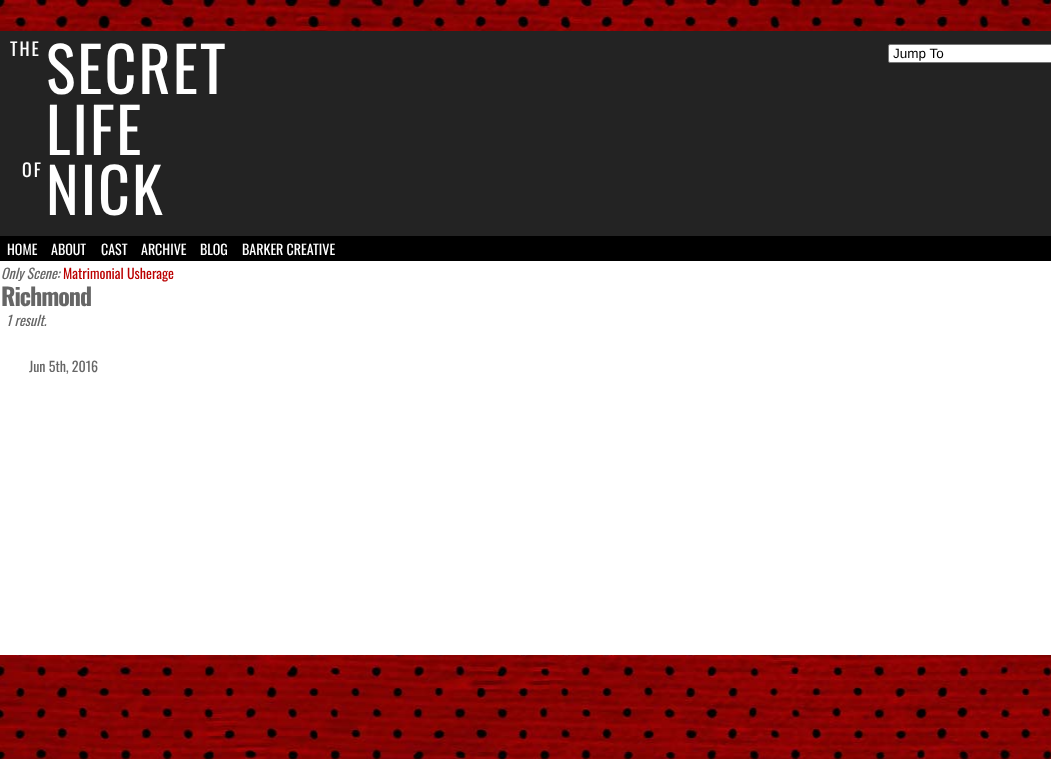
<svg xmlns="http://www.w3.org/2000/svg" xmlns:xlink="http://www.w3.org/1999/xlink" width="1051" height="759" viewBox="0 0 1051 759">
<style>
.cls-1{font:18px Oswald;letter-spacing:2px;fill:#ffffff}
.cls-2{font:62px Oswald;letter-spacing:2px;fill:#ffffff}
.cls-3{font:13.5px Liberation Sans;fill:#000000}
.cls-4{font:14px Oswald;fill:#ffffff}
.cls-5{font:italic 14px Oswald;fill:#666666}
.cls-6{font:14px Oswald;fill:#bb0000}
.cls-7{font:bold 24px Oswald;letter-spacing:-1px;fill:#666666}
.cls-8{font:14px Oswald;fill:#666666}
</style>
<rect width="100%" height="100%" fill="#ffffff"/>
<image xlink:href="image0.png" x="0" y="0" width="1051" height="759"/>
<rect fill="#ffffff" x="0" y="261" width="1051" height="394"/>
<rect fill="#232323" x="0" y="31" width="1051" height="205"/>
<rect fill="#ffffff" stroke="#767676" x="888.5" y="44.5" width="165" height="18" rx="1.5"/>
<rect fill="#000000" x="0" y="236" width="1051" height="25"/>
<text class="cls-1" x="10" y="56">THE</text>
<text class="cls-2"><tspan x="46" y="94">SECRET</tspan><tspan x="46" y="155">LIFE</tspan></text>
<text class="cls-1" x="22" y="177">OF</text>
<text class="cls-2" x="46" y="215">NICK</text>
<text class="cls-3" x="893" y="58">Jump To</text>
<text class="cls-4" x="7" y="255">HOME</text>
<text class="cls-4" x="51" y="255">ABOUT</text>
<text class="cls-4" x="101" y="255">CAST</text>
<text class="cls-4" x="141" y="255">ARCHIVE</text>
<text class="cls-4" x="200" y="255">BLOG</text>
<text class="cls-4" x="242" y="255">BARKER CREATIVE</text>
<text class="cls-5" x="1" y="279">Only Scene:</text>
<text class="cls-6" x="63" y="279">Matrimonial Usherage</text>
<text class="cls-7" x="1" y="306">Richmond</text>
<text class="cls-5" x="6" y="326">1 result.</text>
<text class="cls-8" x="29" y="372">Jun 5th, 2016</text>
</svg>
